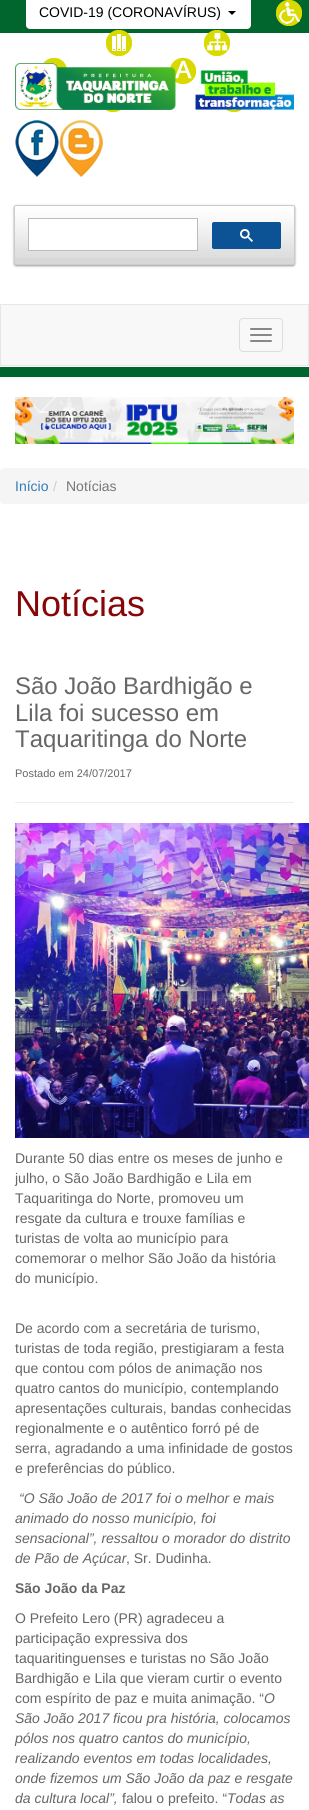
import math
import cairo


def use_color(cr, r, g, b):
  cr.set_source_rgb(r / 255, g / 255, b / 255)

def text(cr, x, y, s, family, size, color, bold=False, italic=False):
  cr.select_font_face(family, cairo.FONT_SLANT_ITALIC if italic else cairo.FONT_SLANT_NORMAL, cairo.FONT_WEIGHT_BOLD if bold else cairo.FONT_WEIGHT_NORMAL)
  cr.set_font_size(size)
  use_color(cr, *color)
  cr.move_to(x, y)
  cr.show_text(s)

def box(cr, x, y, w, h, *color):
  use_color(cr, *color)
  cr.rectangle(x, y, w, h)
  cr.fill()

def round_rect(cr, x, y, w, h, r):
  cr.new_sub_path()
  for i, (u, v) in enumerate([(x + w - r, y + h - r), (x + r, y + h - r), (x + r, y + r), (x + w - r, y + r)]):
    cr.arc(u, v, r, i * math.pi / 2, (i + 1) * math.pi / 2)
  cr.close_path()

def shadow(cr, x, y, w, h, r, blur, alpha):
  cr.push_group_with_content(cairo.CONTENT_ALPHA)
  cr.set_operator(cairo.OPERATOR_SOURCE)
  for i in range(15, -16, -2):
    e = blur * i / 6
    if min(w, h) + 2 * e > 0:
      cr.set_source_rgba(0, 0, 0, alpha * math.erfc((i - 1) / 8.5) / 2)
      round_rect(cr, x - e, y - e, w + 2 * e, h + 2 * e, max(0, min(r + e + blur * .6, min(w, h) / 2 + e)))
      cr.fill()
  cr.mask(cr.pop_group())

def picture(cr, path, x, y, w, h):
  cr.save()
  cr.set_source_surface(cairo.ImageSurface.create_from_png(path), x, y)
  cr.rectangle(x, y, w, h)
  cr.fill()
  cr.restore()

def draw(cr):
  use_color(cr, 255, 255, 255)
  cr.paint()
  box(cr, 0, 0, 309, 33, 0, 102, 45)
  use_color(cr, 255, 255, 255)
  round_rect(cr, 26, -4, 225, 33, 4)
  cr.fill()
  use_color(cr, 0, 0, 0)
  cr.new_path()
  cr.move_to(228, 11)
  cr.line_to(236, 11)
  cr.line_to(232, 15)
  cr.close_path()
  cr.fill()
  picture(cr, "img_01.png", 276, 0, 26, 26)
  picture(cr, "img_02.png", 106, 30, 26, 26)
  picture(cr, "img_03.png", 204, 30, 26, 26)
  picture(cr, "img_04.png", 43, 58, 24, 11)
  picture(cr, "img_05.png", 170, 58, 26, 26)
  picture(cr, "img_06.png", 103, 108, 20, 4)
  picture(cr, "img_07.png", 225, 108, 18, 4)
  picture(cr, "img_08.png", 15, 63, 279, 47)
  picture(cr, "img_09.png", 15, 120, 44, 57)
  picture(cr, "img_10.png", 59, 120, 44, 57)
  use_color(cr, 153, 153, 153)
  shadow(cr, 14, 206, 281, 60, 2, 1, 1)
  use_color(cr, 216, 216, 216)
  round_rect(cr, 14, 205, 281, 60, 2)
  cr.fill()
  picture(cr, "img_11.png", 14, 206, 281, 52)
  round_rect(cr, 14.5, 205.5, 280, 59, 1.5)
  use_color(cr, 204, 204, 204)
  cr.set_line_width(1)
  cr.stroke()
  use_color(cr, 255, 255, 255)
  cr.rectangle(28.5, 218.5, 169, 32)
  cr.fill_preserve()
  use_color(cr, 182, 190, 197)
  cr.stroke()
  use_color(cr, 11, 83, 148)
  round_rect(cr, 212.5, 222.5, 68, 26, 1.5)
  cr.fill_preserve()
  cr.stroke()
  picture(cr, "img_12.png", 240, 229, 13, 13)
  use_color(cr, 248, 248, 248)
  cr.rectangle(0.5, 304.5, 308, 61)
  cr.fill_preserve()
  use_color(cr, 231, 231, 231)
  cr.stroke()
  round_rect(cr, 239.5, 318.5, 43, 33, 3.5)
  use_color(cr, 221, 221, 221)
  cr.stroke()
  use_color(cr, 136, 136, 136)
  round_rect(cr, 250, 328, 22, 2, 1)
  cr.fill()
  round_rect(cr, 250, 334, 22, 2, 1)
  cr.fill()
  round_rect(cr, 250, 340, 22, 2, 1)
  cr.fill()
  box(cr, 0, 367, 309, 10, 0, 102, 45)
  picture(cr, "img_13.png", 15, 397, 279, 47)
  use_color(cr, 245, 245, 245)
  round_rect(cr, 0, 468, 309, 36, 4)
  cr.fill()
  box(cr, 15, 802, 279, 1, 238, 238, 238)
  picture(cr, "img_14.png", 15, 823, 294, 315)
  text(cr, 39, 17, "COVID-19 (CORONAVÍRUS)", "Liberation Sans", 14, (0, 0, 0))
  text(cr, 15, 491, "Início", "Liberation Sans", 14, (51, 122, 183))
  text(cr, 53, 491, "/", "Liberation Sans", 14, (204, 204, 204))
  text(cr, 66, 491, "Notícias", "Liberation Sans", 14, (119, 119, 119))
  text(cr, 15, 616, "Notícias", "Liberation Sans", 36, (135, 6, 8))
  text(cr, 15, 694, "São João Bardhigão e", "Liberation Sans", 24, (102, 102, 102))
  text(cr, 15, 721, "Lila foi sucesso em", "Liberation Sans", 24, (102, 102, 102))
  text(cr, 15, 747, "Taquaritinga do Norte", "Liberation Sans", 24, (102, 102, 102))
  text(cr, 15, 777, "Postado em 24/07/2017", "Liberation Sans", 11, (102, 102, 102))
  text(cr, 15, 1163, "Durante 50 dias entre os meses de junho e", "Liberation Sans", 14, (102, 102, 102))
  text(cr, 15, 1183, "julho, o São João Bardhigão e Lila em", "Liberation Sans", 14, (102, 102, 102))
  text(cr, 15, 1203, "Taquaritinga do Norte, promoveu um", "Liberation Sans", 14, (102, 102, 102))
  text(cr, 15, 1223, "resgate da cultura e trouxe famílias e", "Liberation Sans", 14, (102, 102, 102))
  text(cr, 15, 1243, "turistas de volta ao município para", "Liberation Sans", 14, (102, 102, 102))
  text(cr, 15, 1263, "comemorar o melhor São João da história", "Liberation Sans", 14, (102, 102, 102))
  text(cr, 15, 1283, "do município.", "Liberation Sans", 14, (102, 102, 102))
  text(cr, 15, 1333, "De acordo com a secretária de turismo,", "Liberation Sans", 14, (102, 102, 102))
  text(cr, 15, 1353, "turistas de toda região, prestigiaram a festa", "Liberation Sans", 14, (102, 102, 102))
  text(cr, 15, 1373, "que contou com pólos de animação nos", "Liberation Sans", 14, (102, 102, 102))
  text(cr, 15, 1393, "quatro cantos do município, contemplando", "Liberation Sans", 14, (102, 102, 102))
  text(cr, 15, 1413, "apresentações culturais, bandas conhecidas", "Liberation Sans", 14, (102, 102, 102))
  text(cr, 15, 1433, "regionalmente e o autêntico forró pé de", "Liberation Sans", 14, (102, 102, 102))
  text(cr, 15, 1453, "serra, agradando a uma infinidade de gostos", "Liberation Sans", 14, (102, 102, 102))
  text(cr, 15, 1473, "e preferências do público.", "Liberation Sans", 14, (102, 102, 102))
  text(cr, 19, 1503, "“O São João de 2017 foi o melhor e mais", "Liberation Sans", 14, (102, 102, 102), italic=True)
  text(cr, 15, 1523, "animado do nosso município, foi", "Liberation Sans", 14, (102, 102, 102), italic=True)
  text(cr, 15, 1543, "sensacional”, ressaltou o morador do distrito", "Liberation Sans", 14, (102, 102, 102), italic=True)
  text(cr, 15, 1563, "de Pão de Açúcar", "Liberation Sans", 14, (102, 102, 102), italic=True)
  text(cr, 126, 1563, ", Sr. Dudinha.", "Liberation Sans", 14, (102, 102, 102))
  text(cr, 15, 1593, "São João da Paz", "Liberation Sans", 14, (102, 102, 102), bold=True)
  text(cr, 15, 1623, "O Prefeito Lero (PR) agradeceu a", "Liberation Sans", 14, (102, 102, 102))
  text(cr, 15, 1643, "participação expressiva dos", "Liberation Sans", 14, (102, 102, 102))
  text(cr, 15, 1663, "taquaritinguenses e turistas no São João", "Liberation Sans", 14, (102, 102, 102))
  text(cr, 15, 1683, "Bardhigão e Lila que vieram curtir o evento", "Liberation Sans", 14, (102, 102, 102))
  text(cr, 15, 1703, "com espírito de paz e muita animação. “", "Liberation Sans", 14, (102, 102, 102))
  text(cr, 264, 1703, "O", "Liberation Sans", 14, (102, 102, 102), italic=True)
  text(cr, 15, 1723, "São João 2017 ficou pra história, colocamos", "Liberation Sans", 14, (102, 102, 102), italic=True)
  text(cr, 15, 1743, "pólos nos quatro cantos do município,", "Liberation Sans", 14, (102, 102, 102), italic=True)
  text(cr, 15, 1763, "realizando eventos em todas localidades,", "Liberation Sans", 14, (102, 102, 102), italic=True)
  text(cr, 15, 1783, "onde fizemos um São João da paz e resgate", "Liberation Sans", 14, (102, 102, 102), italic=True)
  text(cr, 15, 1803, "da cultura local”,", "Liberation Sans", 14, (102, 102, 102), italic=True)
  text(cr, 122, 1803, "falou o prefeito. “", "Liberation Sans", 14, (102, 102, 102))
  text(cr, 227, 1803, "Todas as", "Liberation Sans", 14, (102, 102, 102), italic=True)


surface = cairo.ImageSurface(cairo.FORMAT_RGB24, 309, 1810)
cr = cairo.Context(surface)
options = cairo.FontOptions()
options.set_hint_metrics(cairo.HINT_METRICS_OFF)
options.set_hint_style(cairo.HINT_STYLE_NONE)
cr.set_font_options(options)
cr.set_miter_limit(4)
draw(cr)
surface.write_to_png("out.png")
